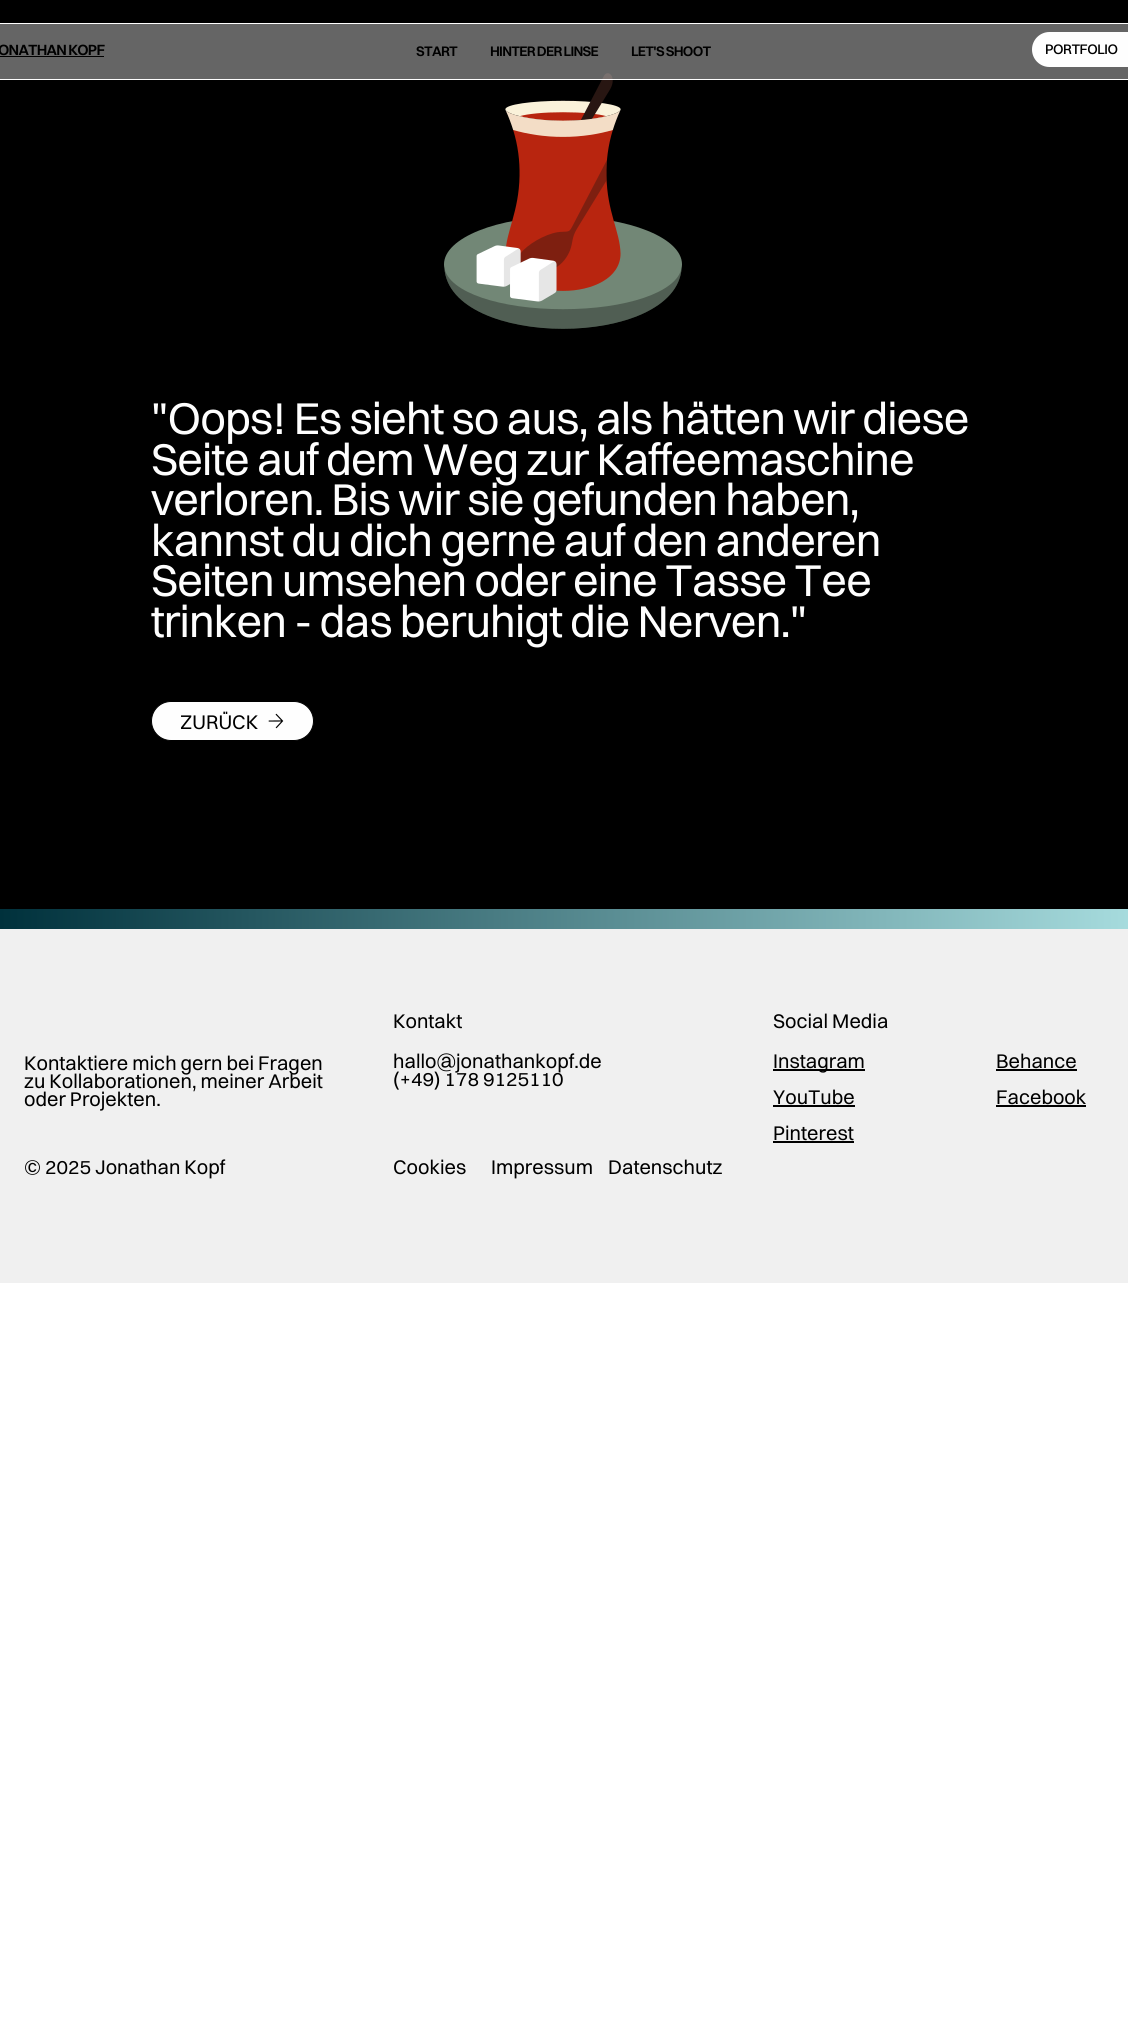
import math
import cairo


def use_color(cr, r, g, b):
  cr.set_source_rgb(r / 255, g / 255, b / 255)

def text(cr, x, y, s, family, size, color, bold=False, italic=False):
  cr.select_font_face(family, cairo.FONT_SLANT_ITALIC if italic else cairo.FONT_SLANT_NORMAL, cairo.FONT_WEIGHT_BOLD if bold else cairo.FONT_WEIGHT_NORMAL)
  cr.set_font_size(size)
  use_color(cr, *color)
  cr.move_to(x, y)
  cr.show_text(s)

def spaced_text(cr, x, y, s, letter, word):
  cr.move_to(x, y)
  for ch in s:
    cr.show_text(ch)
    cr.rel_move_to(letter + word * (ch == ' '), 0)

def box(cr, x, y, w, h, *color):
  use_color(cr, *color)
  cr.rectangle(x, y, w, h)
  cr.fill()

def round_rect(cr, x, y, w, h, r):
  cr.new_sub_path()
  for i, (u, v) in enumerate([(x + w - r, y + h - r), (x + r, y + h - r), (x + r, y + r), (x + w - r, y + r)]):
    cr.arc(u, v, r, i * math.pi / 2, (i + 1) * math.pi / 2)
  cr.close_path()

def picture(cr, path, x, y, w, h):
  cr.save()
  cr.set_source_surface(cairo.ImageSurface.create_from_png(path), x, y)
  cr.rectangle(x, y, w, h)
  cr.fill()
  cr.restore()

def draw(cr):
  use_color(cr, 255, 255, 255)
  cr.paint()
  box(cr, 0, 0, 1128, 909, 0, 0, 0)
  picture(cr, "img_01.png", 444, 73, 238, 256)
  cr.set_source_rgba(0.792, 0.792, 0.792, 0.5)
  cr.rectangle(-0.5, 23.5, 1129, 56)
  cr.fill_preserve()
  use_color(cr, 254, 254, 254)
  cr.set_line_width(1)
  cr.stroke()
  box(cr, 0, 56, 104, 1, 0, 0, 0)
  use_color(cr, 254, 254, 254)
  round_rect(cr, 1032, 32, 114, 35, 17.5)
  cr.fill()
  round_rect(cr, 151.5, 701.5, 162, 39, 19.5)
  cr.fill_preserve()
  use_color(cr, 0, 0, 0)
  cr.stroke()
  picture(cr, "img_02.png", 268, 713, 16, 16)
  box(cr, 0, 929, 1128, 354, 240, 240, 240)
  gradient = cairo.LinearGradient(0, 919, 1128, 919)
  gradient.add_color_stop_rgba(0, 0, 0.192, 0.235, 1)
  gradient.add_color_stop_rgba(1, 0.651, 0.859, 0.867, 1)
  cr.set_source(gradient)
  cr.rectangle(0, 909, 1128, 20)
  cr.fill()
  box(cr, 773, 1069, 92, 2, 0, 0, 0)
  box(cr, 773, 1105, 82, 2, 0, 0, 0)
  box(cr, 773, 1141, 81, 2, 0, 0, 0)
  box(cr, 996, 1069, 81, 2, 0, 0, 0)
  box(cr, 996, 1105, 90, 2, 0, 0, 0)
  cr.select_font_face("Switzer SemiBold")
  cr.set_font_size(15)
  spaced_text(cr, -2, 55, "ONATHAN KOPF", -0.75, 0)
  cr.set_font_size(14)
  spaced_text(cr, 416, 56, "START", -0.75, 0)
  spaced_text(cr, 490, 56, "HINTER DER LINSE", -0.75, 0)
  spaced_text(cr, 631, 56, "LET'S SHOOT", -0.75, 0)
  cr.select_font_face("Switzer Medium")
  spaced_text(cr, 1045, 54, "PORTFOLIO", -0.5, 0)
  cr.select_font_face("Switzer")
  cr.set_font_size(45)
  use_color(cr, 254, 254, 254)
  spaced_text(cr, 151, 434, "\"Oops! Es sieht so aus, als hätten wir diese", -0.9, 0)
  spaced_text(cr, 151, 475, "Seite auf dem Weg zur Kaffeemaschine", -0.9, 0)
  spaced_text(cr, 151, 515, "verloren. Bis wir sie gefunden haben,", -0.9, 0)
  spaced_text(cr, 151, 556, "kannst du dich gerne auf den anderen", -0.9, 0)
  spaced_text(cr, 151, 596, "Seiten umsehen oder eine Tasse Tee", -0.9, 0)
  spaced_text(cr, 151, 637, "trinken - das beruhigt die Nerven.\"", -0.9, 0)
  text(cr, 180, 729, "ZURÜCK", "Switzer", 20, (0, 0, 0))
  text(cr, 24, 1070, "Kontaktiere mich gern bei Fragen", "Switzer", 20, (0, 0, 0))
  text(cr, 24, 1088, "zu Kollaborationen, meiner Arbeit", "Switzer", 20, (0, 0, 0))
  text(cr, 24, 1106, "oder Projekten.", "Switzer", 20, (0, 0, 0))
  text(cr, 24, 1174, "© 2025 Jonathan Kopf", "Switzer", 20, (0, 0, 0))
  text(cr, 393, 1028, "Kontakt", "Switzer", 20, (0, 0, 0))
  text(cr, 393, 1068, "hallo@jonathankopf.de", "Switzer", 20, (0, 0, 0))
  text(cr, 393, 1086, "(+49) 178 9125110", "Switzer", 20, (0, 0, 0))
  text(cr, 393, 1174, "Cookies", "Switzer", 20, (0, 0, 0))
  text(cr, 491, 1174, "Impressum", "Switzer", 20, (0, 0, 0))
  text(cr, 608, 1174, "Datenschutz", "Switzer", 20, (0, 0, 0))
  text(cr, 773, 1028, "Social Media", "Switzer", 20, (0, 0, 0))
  text(cr, 773, 1068, "Instagram", "Switzer", 20, (0, 0, 0))
  text(cr, 773, 1104, "YouTube", "Switzer", 20, (0, 0, 0))
  text(cr, 773, 1140, "Pinterest", "Switzer", 20, (0, 0, 0))
  text(cr, 996, 1068, "Behance", "Switzer", 20, (0, 0, 0))
  text(cr, 996, 1104, "Facebook", "Switzer", 20, (0, 0, 0))


surface = cairo.ImageSurface(cairo.FORMAT_RGB24, 1128, 2044)
cr = cairo.Context(surface)
options = cairo.FontOptions()
options.set_hint_metrics(cairo.HINT_METRICS_OFF)
options.set_hint_style(cairo.HINT_STYLE_NONE)
cr.set_font_options(options)
cr.set_miter_limit(4)
draw(cr)
surface.write_to_png("out.png")
